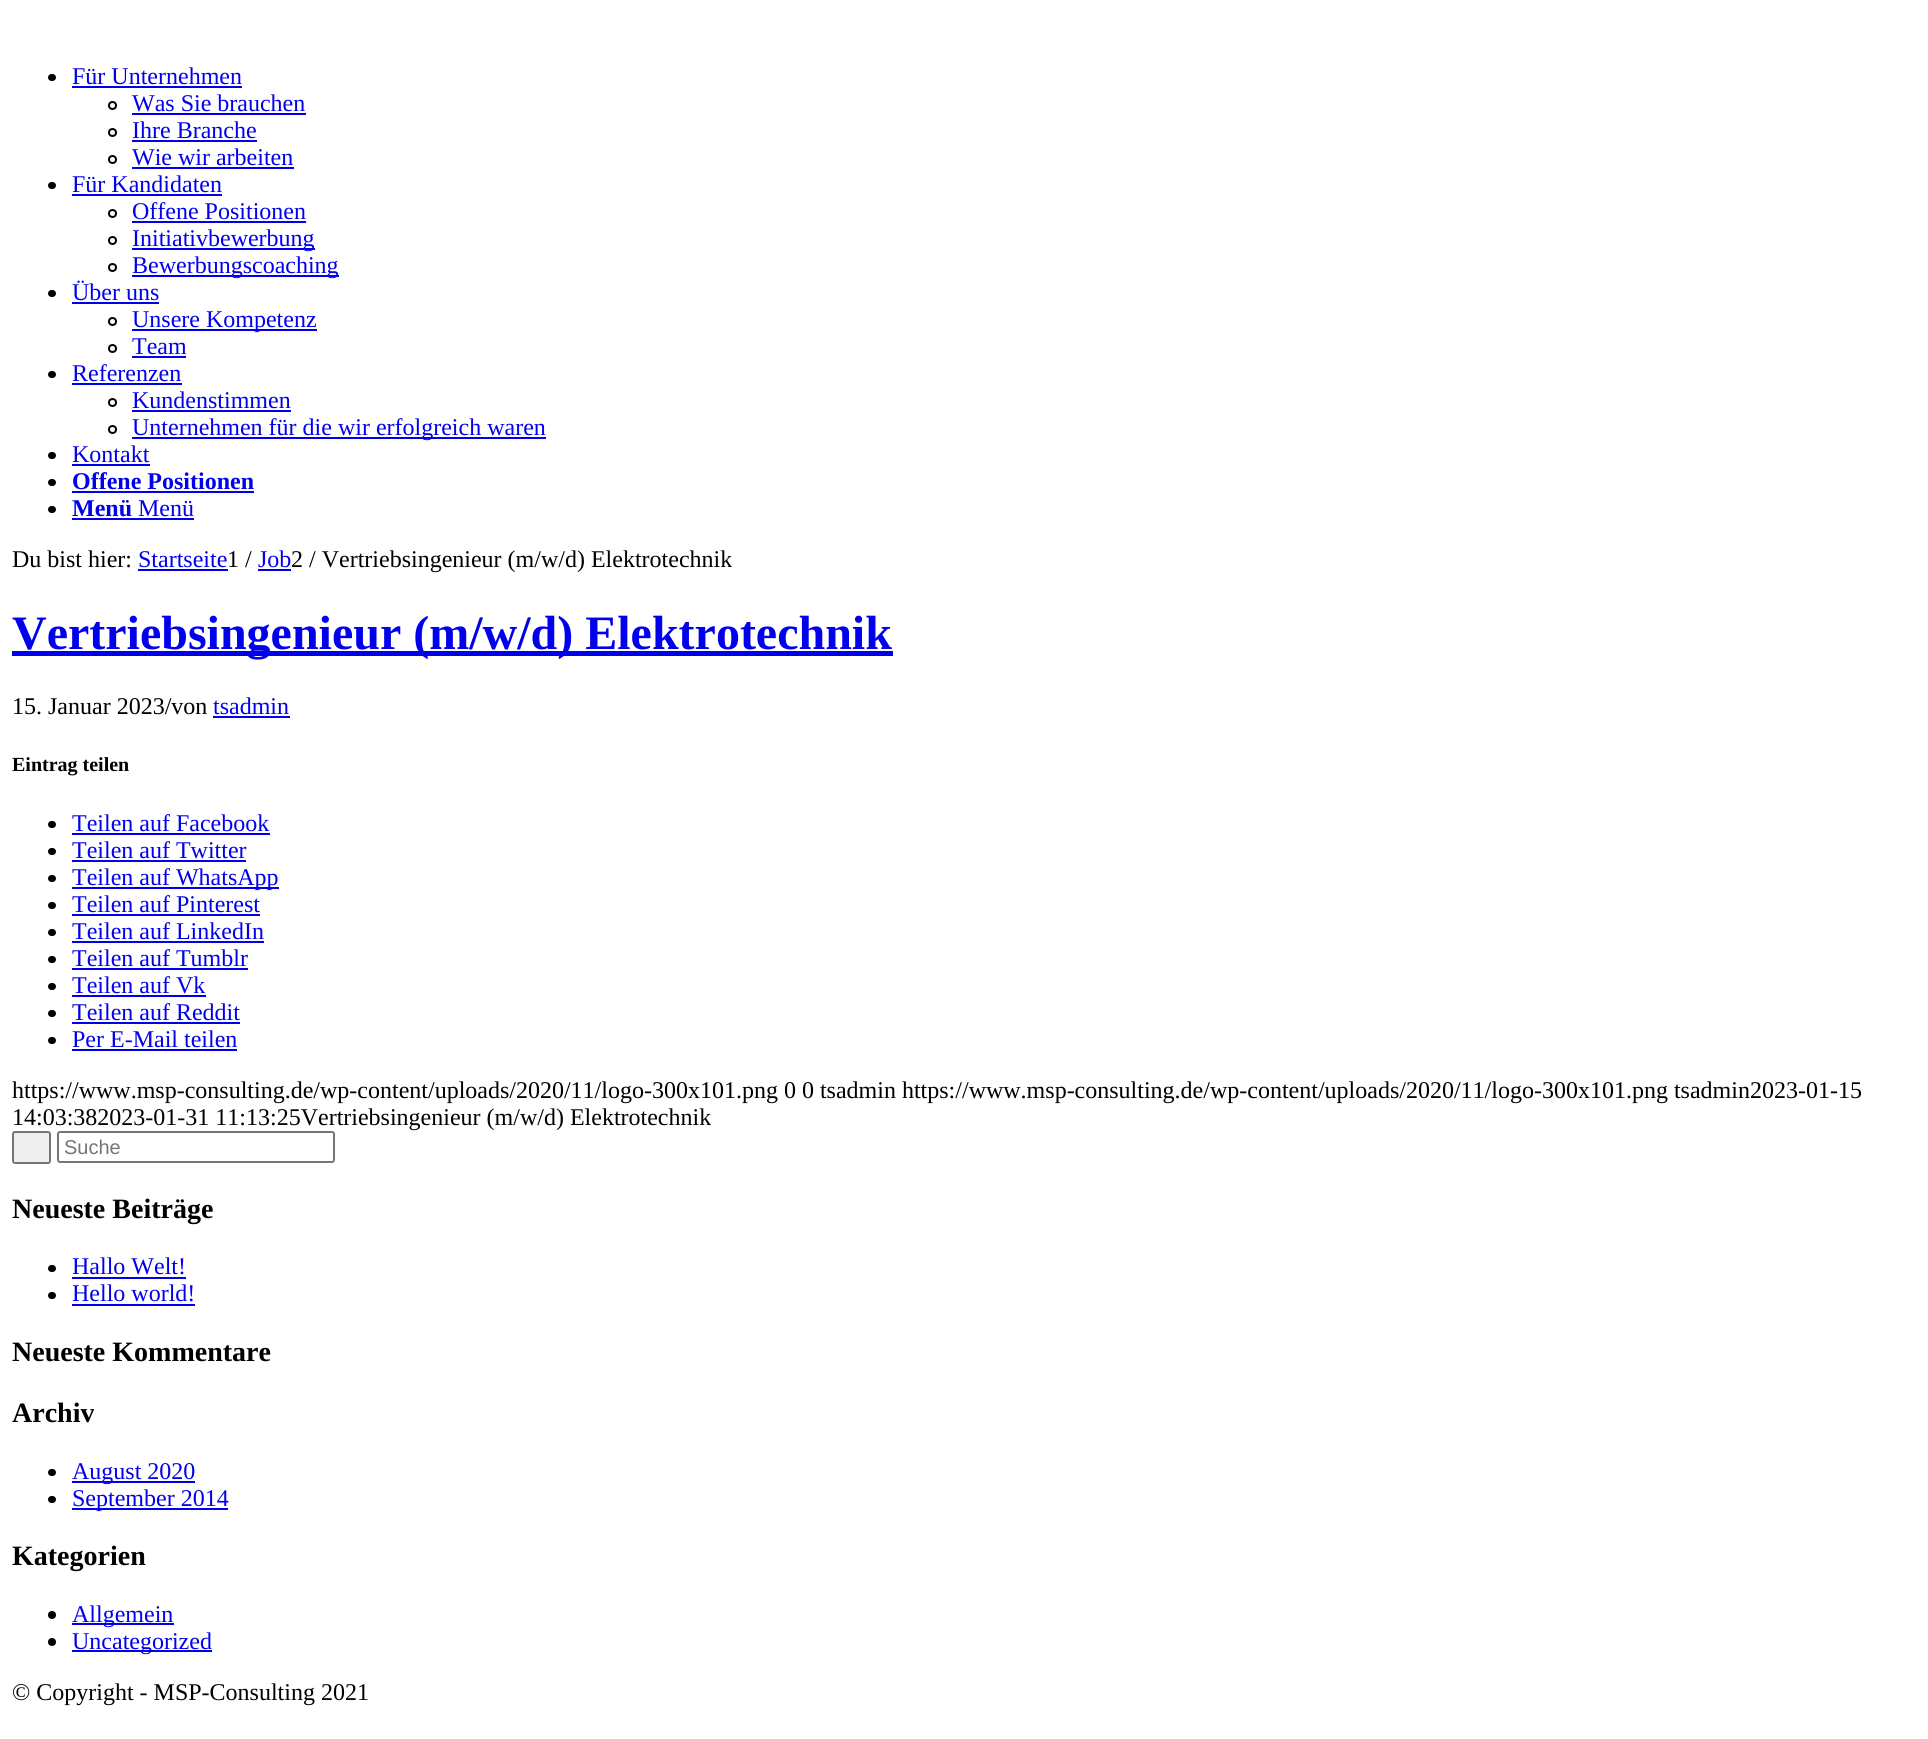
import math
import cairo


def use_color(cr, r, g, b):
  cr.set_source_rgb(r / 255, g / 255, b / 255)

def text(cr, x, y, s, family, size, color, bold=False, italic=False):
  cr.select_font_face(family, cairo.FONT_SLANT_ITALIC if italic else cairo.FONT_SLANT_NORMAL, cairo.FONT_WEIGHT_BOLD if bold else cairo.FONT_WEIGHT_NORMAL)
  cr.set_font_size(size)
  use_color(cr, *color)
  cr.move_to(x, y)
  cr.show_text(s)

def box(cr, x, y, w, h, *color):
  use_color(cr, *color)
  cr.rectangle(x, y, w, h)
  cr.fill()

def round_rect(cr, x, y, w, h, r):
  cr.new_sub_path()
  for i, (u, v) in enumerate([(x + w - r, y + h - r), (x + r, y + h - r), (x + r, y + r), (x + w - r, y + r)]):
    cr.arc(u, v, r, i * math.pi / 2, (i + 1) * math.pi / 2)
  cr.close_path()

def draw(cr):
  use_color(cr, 255, 255, 255)
  cr.paint()
  use_color(cr, 0, 0, 0)
  round_rect(cr, 48, 74, 8, 7, 3.5)
  cr.fill()
  box(cr, 72, 86, 170, 2, 0, 0, 238)
  cr.arc(112.5, 105.5, 3.5, 0, 2 * math.pi)
  use_color(cr, 0, 0, 0)
  cr.stroke()
  box(cr, 132, 113, 174, 2, 0, 0, 238)
  cr.arc(112.5, 132.5, 3.5, 0, 2 * math.pi)
  use_color(cr, 0, 0, 0)
  cr.stroke()
  box(cr, 132, 140, 125, 2, 0, 0, 238)
  cr.arc(112.5, 159.5, 3.5, 0, 2 * math.pi)
  use_color(cr, 0, 0, 0)
  cr.stroke()
  box(cr, 132, 167, 162, 2, 0, 0, 238)
  use_color(cr, 0, 0, 0)
  round_rect(cr, 48, 182, 8, 7, 3.5)
  cr.fill()
  box(cr, 72, 194, 150, 2, 0, 0, 238)
  cr.arc(112.5, 213.5, 3.5, 0, 2 * math.pi)
  use_color(cr, 0, 0, 0)
  cr.stroke()
  box(cr, 132, 221, 174, 2, 0, 0, 238)
  cr.arc(112.5, 240.5, 3.5, 0, 2 * math.pi)
  use_color(cr, 0, 0, 0)
  cr.stroke()
  box(cr, 132, 248, 183, 2, 0, 0, 238)
  cr.arc(112.5, 267.5, 3.5, 0, 2 * math.pi)
  use_color(cr, 0, 0, 0)
  cr.stroke()
  box(cr, 132, 275, 207, 2, 0, 0, 238)
  use_color(cr, 0, 0, 0)
  round_rect(cr, 48, 290, 8, 7, 3.5)
  cr.fill()
  box(cr, 72, 302, 87, 2, 0, 0, 238)
  cr.arc(112.5, 321.5, 3.5, 0, 2 * math.pi)
  use_color(cr, 0, 0, 0)
  cr.stroke()
  box(cr, 132, 329, 185, 2, 0, 0, 238)
  cr.arc(112.5, 348.5, 3.5, 0, 2 * math.pi)
  use_color(cr, 0, 0, 0)
  cr.stroke()
  box(cr, 132, 356, 54, 2, 0, 0, 238)
  use_color(cr, 0, 0, 0)
  round_rect(cr, 48, 371, 8, 7, 3.5)
  cr.fill()
  box(cr, 72, 383, 110, 2, 0, 0, 238)
  cr.arc(112.5, 402.5, 3.5, 0, 2 * math.pi)
  use_color(cr, 0, 0, 0)
  cr.stroke()
  box(cr, 132, 410, 159, 2, 0, 0, 238)
  cr.arc(112.5, 429.5, 3.5, 0, 2 * math.pi)
  use_color(cr, 0, 0, 0)
  cr.stroke()
  box(cr, 132, 437, 414, 2, 0, 0, 238)
  use_color(cr, 0, 0, 0)
  round_rect(cr, 48, 452, 8, 7, 3.5)
  cr.fill()
  box(cr, 72, 464, 78, 2, 0, 0, 238)
  use_color(cr, 0, 0, 0)
  round_rect(cr, 48, 479, 8, 7, 3.5)
  cr.fill()
  box(cr, 72, 491, 182, 2, 0, 0, 238)
  use_color(cr, 0, 0, 0)
  round_rect(cr, 48, 506, 8, 7, 3.5)
  cr.fill()
  box(cr, 72, 518, 122, 2, 0, 0, 238)
  box(cr, 138, 569, 90, 2, 0, 0, 238)
  box(cr, 258, 569, 33, 2, 0, 0, 238)
  box(cr, 12, 651, 881, 5, 0, 0, 238)
  box(cr, 213, 716, 77, 2, 0, 0, 238)
  use_color(cr, 0, 0, 0)
  round_rect(cr, 48, 821, 8, 7, 3.5)
  cr.fill()
  box(cr, 72, 833, 198, 2, 0, 0, 238)
  use_color(cr, 0, 0, 0)
  round_rect(cr, 48, 848, 8, 7, 3.5)
  cr.fill()
  box(cr, 72, 860, 174, 2, 0, 0, 238)
  use_color(cr, 0, 0, 0)
  round_rect(cr, 48, 875, 8, 7, 3.5)
  cr.fill()
  box(cr, 72, 887, 207, 2, 0, 0, 238)
  use_color(cr, 0, 0, 0)
  round_rect(cr, 48, 902, 8, 7, 3.5)
  cr.fill()
  box(cr, 72, 914, 188, 2, 0, 0, 238)
  use_color(cr, 0, 0, 0)
  round_rect(cr, 48, 929, 8, 7, 3.5)
  cr.fill()
  box(cr, 72, 941, 192, 2, 0, 0, 238)
  use_color(cr, 0, 0, 0)
  round_rect(cr, 48, 956, 8, 7, 3.5)
  cr.fill()
  box(cr, 72, 968, 176, 2, 0, 0, 238)
  use_color(cr, 0, 0, 0)
  round_rect(cr, 48, 983, 8, 7, 3.5)
  cr.fill()
  box(cr, 72, 995, 134, 2, 0, 0, 238)
  use_color(cr, 0, 0, 0)
  round_rect(cr, 48, 1010, 8, 7, 3.5)
  cr.fill()
  box(cr, 72, 1022, 168, 2, 0, 0, 238)
  use_color(cr, 0, 0, 0)
  round_rect(cr, 48, 1037, 8, 7, 3.5)
  cr.fill()
  box(cr, 72, 1049, 165, 2, 0, 0, 238)
  use_color(cr, 239, 239, 239)
  round_rect(cr, 13, 1132, 37, 31, 2)
  cr.fill_preserve()
  use_color(cr, 118, 118, 118)
  cr.stroke()
  round_rect(cr, 58, 1132, 276, 30, 2)
  cr.stroke()
  use_color(cr, 0, 0, 0)
  round_rect(cr, 48, 1265, 8, 7, 3.5)
  cr.fill()
  box(cr, 72, 1277, 114, 2, 0, 0, 238)
  use_color(cr, 0, 0, 0)
  round_rect(cr, 48, 1292, 8, 7, 3.5)
  cr.fill()
  box(cr, 72, 1304, 123, 2, 0, 0, 238)
  use_color(cr, 0, 0, 0)
  round_rect(cr, 48, 1469, 8, 7, 3.5)
  cr.fill()
  box(cr, 72, 1481, 123, 2, 0, 0, 238)
  use_color(cr, 0, 0, 0)
  round_rect(cr, 48, 1496, 8, 7, 3.5)
  cr.fill()
  box(cr, 72, 1508, 156, 2, 0, 0, 238)
  use_color(cr, 0, 0, 0)
  cr.arc(52, 1615, 4, 0, 2 * math.pi)
  cr.fill()
  box(cr, 72, 1623, 102, 2, 0, 0, 238)
  use_color(cr, 0, 0, 0)
  cr.arc(52, 1642, 4, 0, 2 * math.pi)
  cr.fill()
  box(cr, 72, 1650, 140, 2, 0, 0, 238)
  text(cr, 72, 84, "Für Unternehmen", "Liberation Serif", 24, (0, 0, 238))
  text(cr, 132, 111, "Was Sie brauchen", "Liberation Serif", 24, (0, 0, 238))
  text(cr, 132, 138, "Ihre Branche", "Liberation Serif", 24, (0, 0, 238))
  text(cr, 132, 165, "Wie wir arbeiten", "Liberation Serif", 24, (0, 0, 238))
  text(cr, 72, 192, "Für Kandidaten", "Liberation Serif", 24, (0, 0, 238))
  text(cr, 132, 219, "Offene Positionen", "Liberation Serif", 24, (0, 0, 238))
  text(cr, 132, 246, "Initiativbewerbung", "Liberation Serif", 24, (0, 0, 238))
  text(cr, 132, 273, "Bewerbungscoaching", "Liberation Serif", 24, (0, 0, 238))
  text(cr, 72, 300, "Über uns", "Liberation Serif", 24, (0, 0, 238))
  text(cr, 132, 327, "Unsere Kompetenz", "Liberation Serif", 24, (0, 0, 238))
  text(cr, 132, 354, "Team", "Liberation Serif", 24, (0, 0, 238))
  text(cr, 72, 381, "Referenzen", "Liberation Serif", 24, (0, 0, 238))
  text(cr, 132, 408, "Kundenstimmen", "Liberation Serif", 24, (0, 0, 238))
  text(cr, 132, 435, "Unternehmen für die wir erfolgreich waren", "Liberation Serif", 24, (0, 0, 238))
  text(cr, 72, 462, "Kontakt", "Liberation Serif", 24, (0, 0, 238))
  text(cr, 72, 489, "Offene Positionen", "Liberation Serif", 24, (0, 0, 238), bold=True)
  text(cr, 72, 516, "Menü", "Liberation Serif", 24, (0, 0, 238), bold=True)
  text(cr, 138, 516, "Menü", "Liberation Serif", 24, (0, 0, 238))
  text(cr, 12, 567, "Du bist hier:", "Liberation Serif", 24, (0, 0, 0))
  text(cr, 138, 567, "Startseite", "Liberation Serif", 24, (0, 0, 238))
  text(cr, 227, 567, "1 /", "Liberation Serif", 24, (0, 0, 0))
  text(cr, 258, 567, "Job", "Liberation Serif", 24, (0, 0, 238))
  text(cr, 291, 567, "2 / Vertriebsingenieur (m/w/d) Elektrotechnik", "Liberation Serif", 24, (0, 0, 0))
  text(cr, 12, 649, "Vertriebsingenieur (m/w/d) Elektrotechnik", "Liberation Serif", 48, (0, 0, 238), bold=True)
  text(cr, 12, 714, "15. Januar 2023/von", "Liberation Serif", 24, (0, 0, 0))
  text(cr, 213, 714, "tsadmin", "Liberation Serif", 24, (0, 0, 238))
  text(cr, 12, 771, "Eintrag teilen", "Liberation Serif", 20, (0, 0, 0), bold=True)
  text(cr, 72, 831, "Teilen auf Facebook", "Liberation Serif", 24, (0, 0, 238))
  text(cr, 72, 858, "Teilen auf Twitter", "Liberation Serif", 24, (0, 0, 238))
  text(cr, 72, 885, "Teilen auf WhatsApp", "Liberation Serif", 24, (0, 0, 238))
  text(cr, 72, 912, "Teilen auf Pinterest", "Liberation Serif", 24, (0, 0, 238))
  text(cr, 72, 939, "Teilen auf LinkedIn", "Liberation Serif", 24, (0, 0, 238))
  text(cr, 72, 966, "Teilen auf Tumblr", "Liberation Serif", 24, (0, 0, 238))
  text(cr, 72, 993, "Teilen auf Vk", "Liberation Serif", 24, (0, 0, 238))
  text(cr, 72, 1020, "Teilen auf Reddit", "Liberation Serif", 24, (0, 0, 238))
  text(cr, 72, 1047, "Per E-Mail teilen", "Liberation Serif", 24, (0, 0, 238))
  text(cr, 12, 1098, "https://www.msp-consulting.de/wp-content/uploads/2020/11/logo-300x101.png 0 0 tsadmin https://www.msp-consulting.de/wp-content/uploads/2020/11/logo-300x101.png tsadmin2023-01-15", "Liberation Serif", 24, (0, 0, 0))
  text(cr, 12, 1125, "14:03:382023-01-31 11:13:25Vertriebsingenieur (m/w/d) Elektrotechnik", "Liberation Serif", 24, (0, 0, 0))
  text(cr, 64, 1154, "Suche", "Liberation Sans", 20, (117, 117, 117))
  text(cr, 12, 1218, "Neueste Beiträge", "Liberation Serif", 28, (0, 0, 0), bold=True)
  text(cr, 72, 1274, "Hallo Welt!", "Liberation Serif", 24, (0, 0, 238))
  text(cr, 72, 1301, "Hello world!", "Liberation Serif", 24, (0, 0, 238))
  text(cr, 12, 1361, "Neueste Kommentare", "Liberation Serif", 28, (0, 0, 0), bold=True)
  text(cr, 12, 1422, "Archiv", "Liberation Serif", 28, (0, 0, 0), bold=True)
  text(cr, 72, 1479, "August 2020", "Liberation Serif", 24, (0, 0, 238))
  text(cr, 72, 1506, "September 2014", "Liberation Serif", 24, (0, 0, 238))
  text(cr, 12, 1565, "Kategorien", "Liberation Serif", 28, (0, 0, 0), bold=True)
  text(cr, 72, 1622, "Allgemein", "Liberation Serif", 24, (0, 0, 238))
  text(cr, 72, 1649, "Uncategorized", "Liberation Serif", 24, (0, 0, 238))
  text(cr, 12, 1700, "© Copyright - MSP-Consulting 2021", "Liberation Serif", 24, (0, 0, 0))


surface = cairo.ImageSurface(cairo.FORMAT_RGB24, 1928, 1739)
cr = cairo.Context(surface)
options = cairo.FontOptions()
options.set_hint_metrics(cairo.HINT_METRICS_OFF)
options.set_hint_style(cairo.HINT_STYLE_NONE)
cr.set_font_options(options)
cr.set_miter_limit(4)
draw(cr)
surface.write_to_png("out.png")
